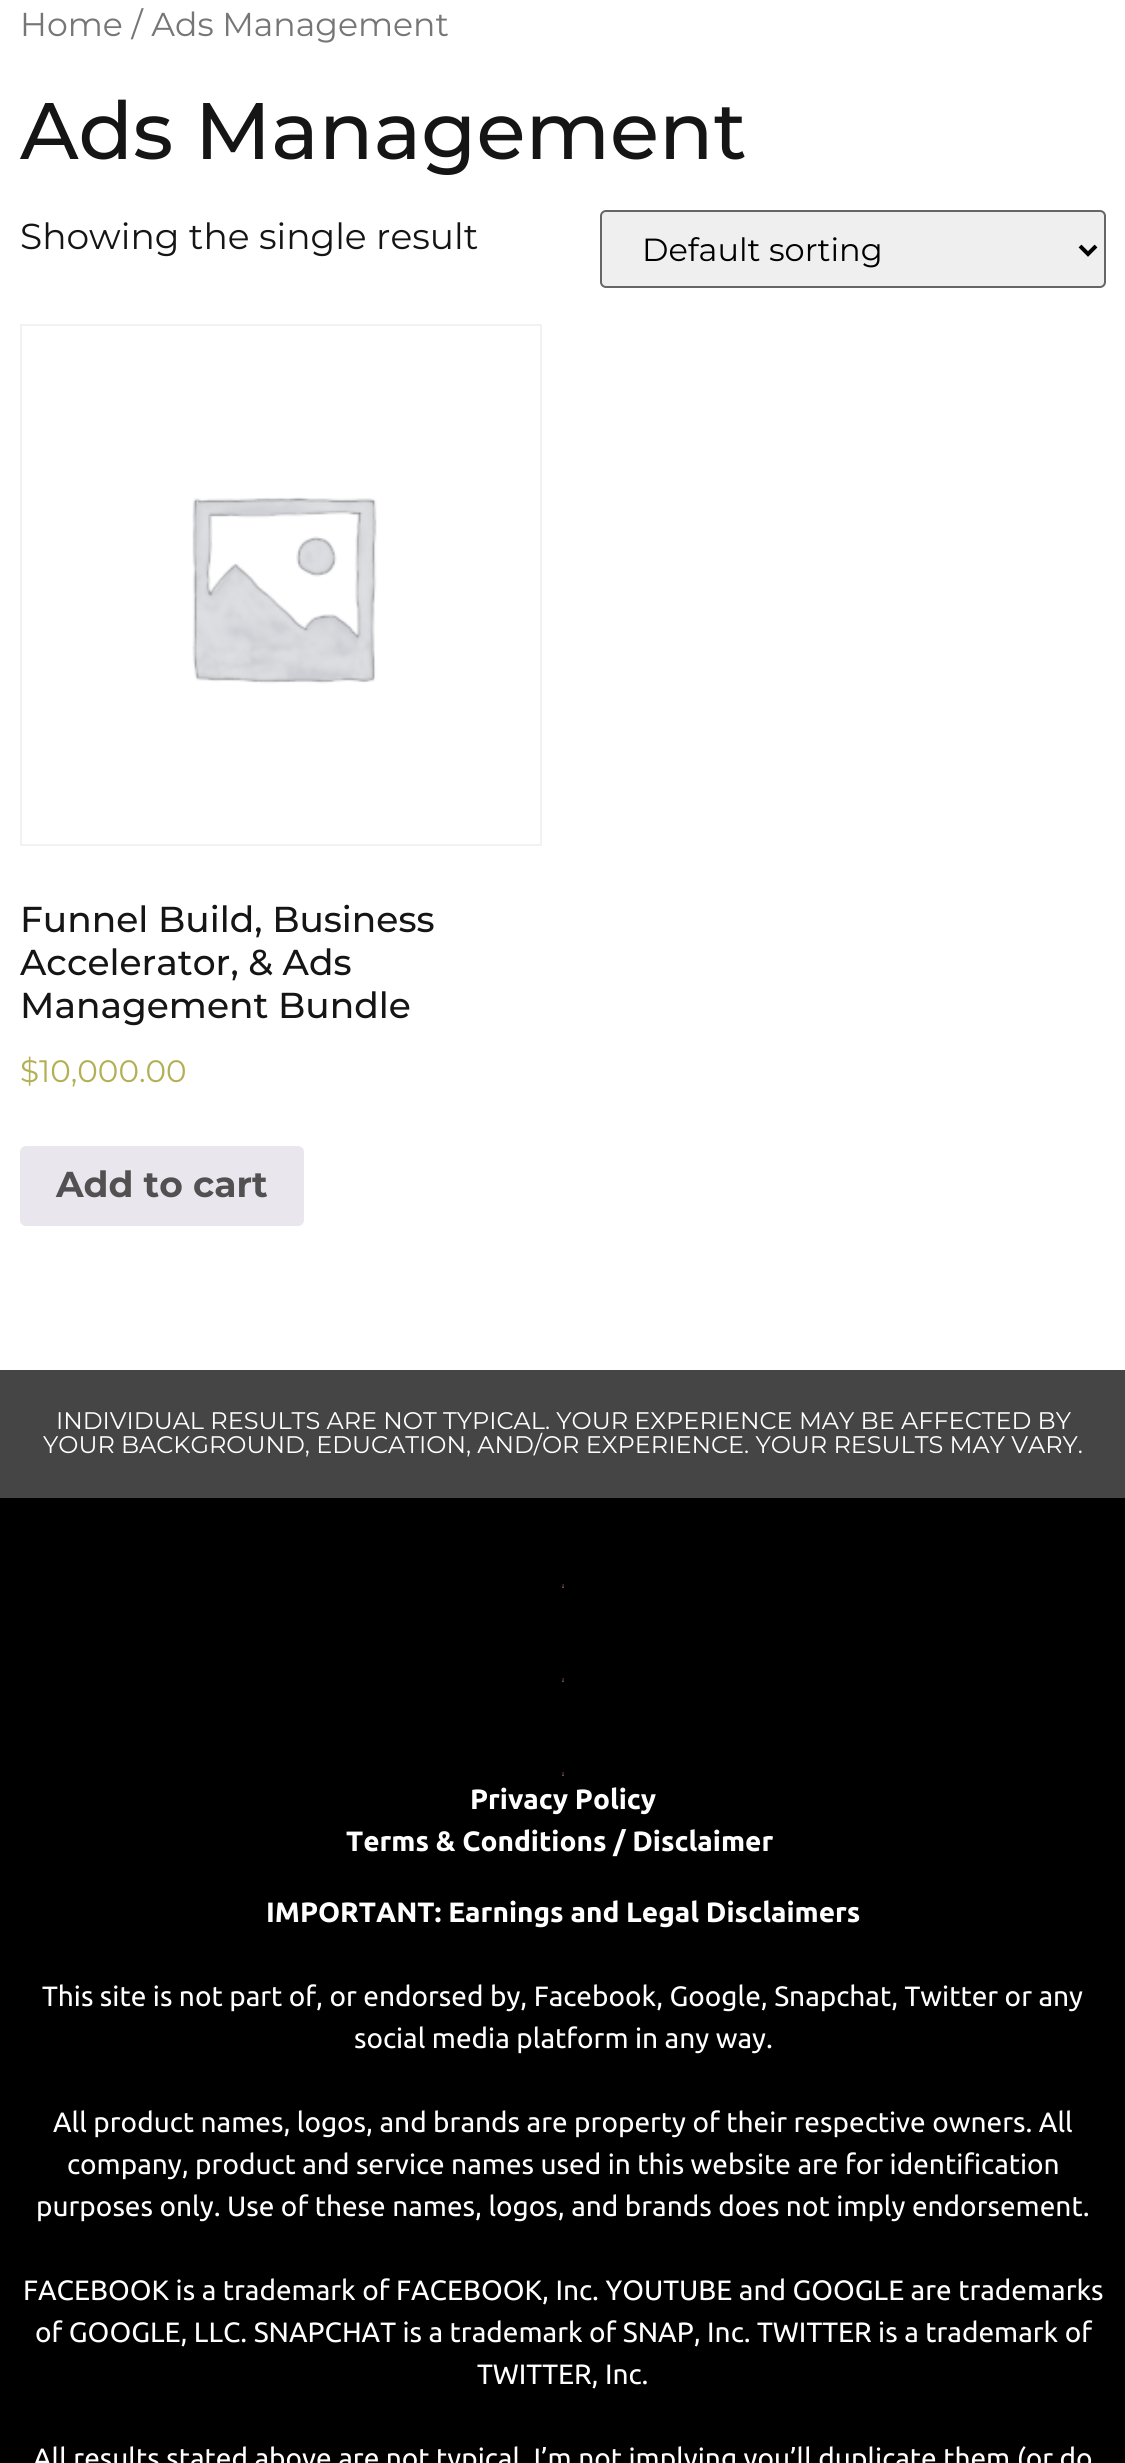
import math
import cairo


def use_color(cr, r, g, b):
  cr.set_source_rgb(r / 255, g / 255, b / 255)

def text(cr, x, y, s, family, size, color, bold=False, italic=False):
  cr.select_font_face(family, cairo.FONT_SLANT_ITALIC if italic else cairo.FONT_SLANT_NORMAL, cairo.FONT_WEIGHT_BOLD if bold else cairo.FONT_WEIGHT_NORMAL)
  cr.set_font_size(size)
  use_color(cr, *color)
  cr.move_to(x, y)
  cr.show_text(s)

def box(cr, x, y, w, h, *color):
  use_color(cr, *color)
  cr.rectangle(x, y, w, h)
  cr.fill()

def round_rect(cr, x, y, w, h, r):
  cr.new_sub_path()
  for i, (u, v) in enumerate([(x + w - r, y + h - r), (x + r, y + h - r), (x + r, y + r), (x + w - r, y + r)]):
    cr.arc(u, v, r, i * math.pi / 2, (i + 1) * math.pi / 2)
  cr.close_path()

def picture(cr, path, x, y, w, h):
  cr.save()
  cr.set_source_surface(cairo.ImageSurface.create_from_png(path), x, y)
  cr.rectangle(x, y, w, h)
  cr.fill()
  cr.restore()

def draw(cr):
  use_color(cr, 255, 255, 255)
  cr.paint()
  use_color(cr, 239, 239, 239)
  round_rect(cr, 601, 211, 504, 76, 5)
  cr.fill_preserve()
  use_color(cr, 102, 102, 102)
  cr.stroke()
  cr.new_path()
  cr.move_to(1080, 246)
  cr.line_to(1088, 254)
  cr.line_to(1096, 246)
  use_color(cr, 0, 0, 0)
  cr.set_line_width(4)
  cr.stroke()
  cr.rectangle(21, 325, 520, 520)
  use_color(cr, 242, 242, 242)
  cr.set_line_width(2)
  cr.stroke()
  picture(cr, "img_01.png", 192, 497, 185, 187)
  use_color(cr, 233, 230, 237)
  round_rect(cr, 20, 1146, 284, 80, 6)
  cr.fill()
  box(cr, 0, 1370, 1125, 128, 69, 69, 69)
  box(cr, 0, 1498, 1125, 965, 0, 0, 0)
  picture(cr, "img_02.png", 562, 1584, 2, 4)
  picture(cr, "img_02.png", 562, 1678, 2, 4)
  picture(cr, "img_02.png", 562, 1772, 2, 4)
  text(cr, 20, 36, "Home / Ads Management", "Montserrat", 33.1, (118, 118, 118))
  text(cr, 20, 159, "Ads Management", "Montserrat Medium", 80, (21, 21, 21))
  text(cr, 20, 249, "Showing the single result", "Montserrat", 36, (21, 21, 21))
  text(cr, 642, 261, "Default sorting", "Montserrat", 32, (0, 0, 0))
  text(cr, 20, 932, "Funnel Build, Business", "Montserrat Medium", 36, (21, 21, 21))
  text(cr, 20, 975, "Accelerator, & Ads", "Montserrat Medium", 36, (21, 21, 21))
  text(cr, 20, 1018, "Management Bundle", "Montserrat Medium", 36, (21, 21, 21))
  text(cr, 20, 1082, "$10,000.00", "Montserrat", 31, (179, 175, 84))
  text(cr, 56, 1197, "Add to cart", "Montserrat", 36, (81, 81, 81), bold=True)
  text(cr, 56, 1429, "INDIVIDUAL RESULTS ARE NOT TYPICAL. YOUR EXPERIENCE MAY BE AFFECTED BY", "Montserrat", 24, (255, 255, 255))
  text(cr, 43, 1453, "YOUR BACKGROUND, EDUCATION, AND/OR EXPERIENCE. YOUR RESULTS MAY VARY.", "Montserrat", 24, (255, 255, 255))
  text(cr, 470, 1809, "Privacy Policy", "Ubuntu", 28, (255, 255, 255), bold=True)
  text(cr, 346, 1851, "Terms & Conditions / Disclaimer", "Ubuntu", 28, (255, 255, 255), bold=True)
  text(cr, 266, 1922, "IMPORTANT: Earnings and Legal Disclaimers", "Ubuntu", 28, (255, 255, 255), bold=True)
  text(cr, 42, 2006, "This site is not part of, or endorsed by, Facebook, Google, Snapchat, Twitter or any", "Ubuntu", 28, (255, 255, 255))
  text(cr, 354, 2048, "social media platform in any way.", "Ubuntu", 28, (255, 255, 255))
  text(cr, 53, 2132, "All product names, logos, and brands are property of their respective owners. All", "Ubuntu", 28, (255, 255, 255))
  text(cr, 67, 2174, "company, product and service names used in this website are for identification", "Ubuntu", 28, (255, 255, 255))
  text(cr, 36, 2216, "purposes only. Use of these names, logos, and brands does not imply endorsement.", "Ubuntu", 28, (255, 255, 255))
  text(cr, 23, 2300, "FACEBOOK is a trademark of FACEBOOK, Inc. YOUTUBE and GOOGLE are trademarks", "Ubuntu", 28, (255, 255, 255))
  text(cr, 35, 2342, "of GOOGLE, LLC. SNAPCHAT is a trademark of SNAP, Inc. TWITTER is a trademark of", "Ubuntu", 28, (255, 255, 255))
  text(cr, 477, 2384, "TWITTER, Inc.", "Ubuntu", 28, (255, 255, 255))
  text(cr, 33, 2468, "All results stated above are not typical, I’m not implying you’ll duplicate them (or do", "Ubuntu", 28, (255, 255, 255))


surface = cairo.ImageSurface(cairo.FORMAT_RGB24, 1125, 2463)
cr = cairo.Context(surface)
options = cairo.FontOptions()
options.set_hint_metrics(cairo.HINT_METRICS_OFF)
options.set_hint_style(cairo.HINT_STYLE_NONE)
cr.set_font_options(options)
cr.set_miter_limit(4)
draw(cr)
surface.write_to_png("out.png")
